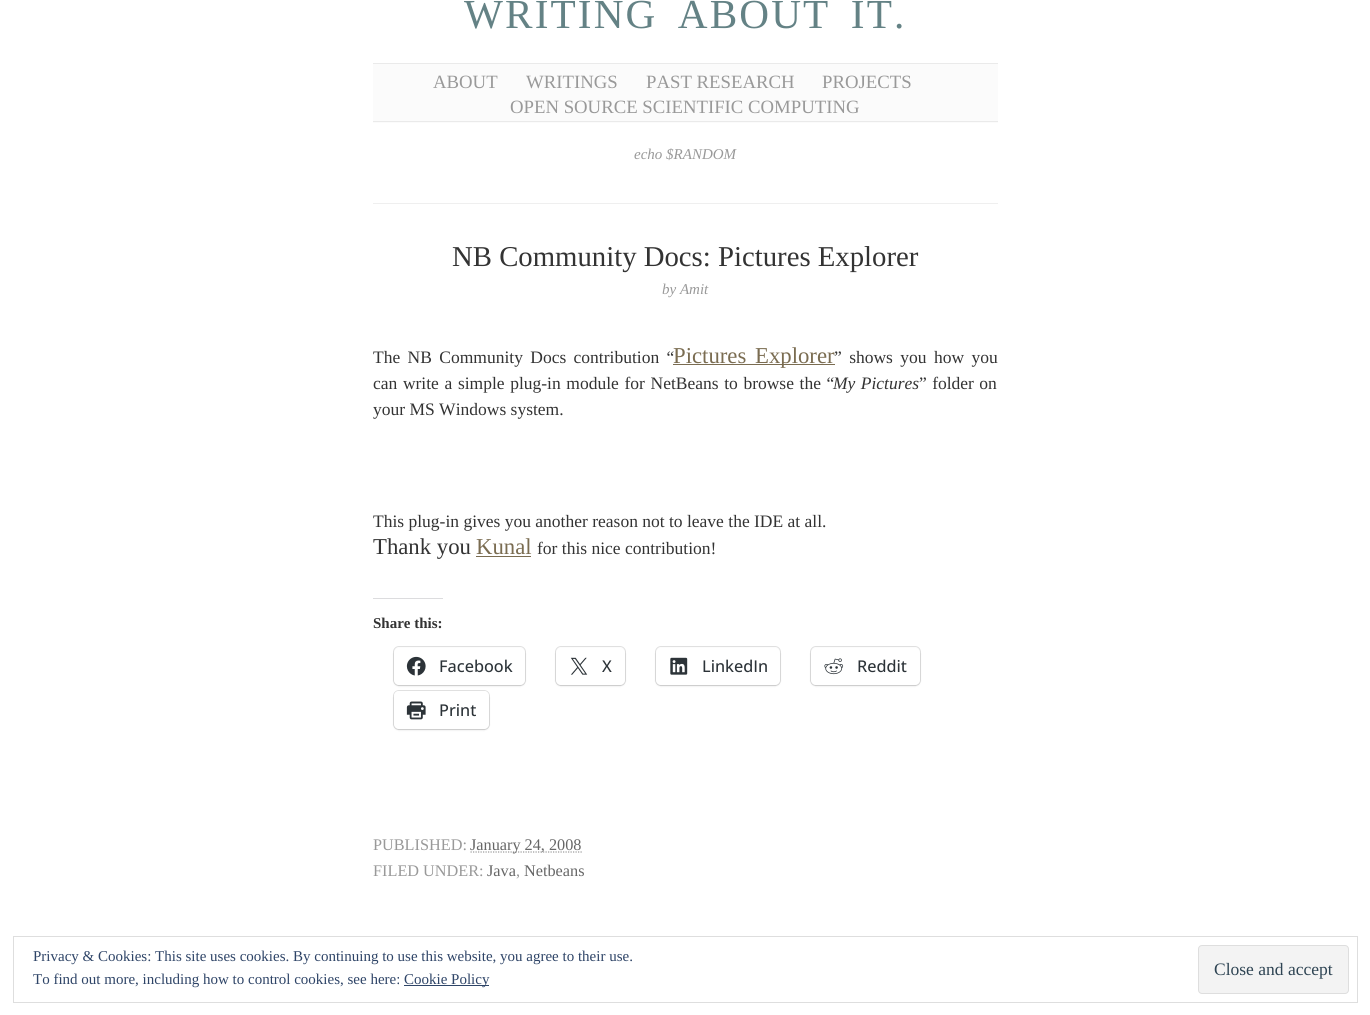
import math
import cairo


def use_color(cr, r, g, b):
  cr.set_source_rgb(r / 255, g / 255, b / 255)

def text(cr, x, y, s, family, size, color, bold=False, italic=False):
  cr.select_font_face(family, cairo.FONT_SLANT_ITALIC if italic else cairo.FONT_SLANT_NORMAL, cairo.FONT_WEIGHT_BOLD if bold else cairo.FONT_WEIGHT_NORMAL)
  cr.set_font_size(size)
  use_color(cr, *color)
  cr.move_to(x, y)
  cr.show_text(s)

def spaced_text(cr, x, y, s, letter, word):
  cr.move_to(x, y)
  for ch in s:
    cr.show_text(ch)
    cr.rel_move_to(letter + word * (ch == ' '), 0)

def box(cr, x, y, w, h, *color):
  use_color(cr, *color)
  cr.rectangle(x, y, w, h)
  cr.fill()

def round_rect(cr, x, y, w, h, r):
  cr.new_sub_path()
  for i, (u, v) in enumerate([(x + w - r, y + h - r), (x + r, y + h - r), (x + r, y + r), (x + w - r, y + r)]):
    cr.arc(u, v, r, i * math.pi / 2, (i + 1) * math.pi / 2)
  cr.close_path()

def shadow(cr, x, y, w, h, r, blur, alpha):
  cr.push_group_with_content(cairo.CONTENT_ALPHA)
  cr.set_operator(cairo.OPERATOR_SOURCE)
  for i in range(15, -16, -2):
    e = blur * i / 6
    if min(w, h) + 2 * e > 0:
      cr.set_source_rgba(0, 0, 0, alpha * math.erfc((i - 1) / 8.5) / 2)
      round_rect(cr, x - e, y - e, w + 2 * e, h + 2 * e, max(0, min(r + e + blur * .6, min(w, h) / 2 + e)))
      cr.fill()
  cr.mask(cr.pop_group())

def picture(cr, path, x, y, w, h):
  cr.save()
  cr.set_source_surface(cairo.ImageSurface.create_from_png(path), x, y)
  cr.rectangle(x, y, w, h)
  cr.fill()
  cr.restore()

def draw(cr):
  use_color(cr, 255, 255, 255)
  cr.paint()
  box(cr, 373, 64, 625, 59, 251, 251, 251)
  box(cr, 373, 63, 625, 1, 234, 234, 234)
  box(cr, 373, 121, 625, 1, 234, 234, 234)
  box(cr, 373, 203, 625, 1, 239, 239, 239)
  box(cr, 673, 364, 162, 1, 122, 108, 81)
  box(cr, 476, 556, 55, 1, 122, 108, 81)
  box(cr, 373, 598, 70, 1, 220, 220, 222)
  round_rect(cr, 393.5, 646.5, 132, 39, 5.5)
  use_color(cr, 224, 224, 224)
  cr.set_line_width(1)
  cr.stroke()
  use_color(cr, 0, 0, 0)
  shadow(cr, 394, 649, 131, 37, 5, 1, 0.12)
  use_color(cr, 255, 255, 255)
  round_rect(cr, 394, 648, 131, 37, 5)
  cr.fill()
  picture(cr, "img_01.png", 406, 656, 20, 20)
  round_rect(cr, 555.5, 646.5, 70, 39, 5.5)
  use_color(cr, 224, 224, 224)
  cr.stroke()
  use_color(cr, 0, 0, 0)
  shadow(cr, 556, 649, 69, 37, 5, 1, 0.12)
  use_color(cr, 255, 255, 255)
  round_rect(cr, 556, 648, 69, 37, 5)
  cr.fill()
  picture(cr, "img_02.png", 570, 657, 18, 18)
  round_rect(cr, 655.5, 646.5, 125, 39, 5.5)
  use_color(cr, 224, 224, 224)
  cr.stroke()
  use_color(cr, 0, 0, 0)
  shadow(cr, 656, 649, 124, 37, 5, 1, 0.12)
  use_color(cr, 255, 255, 255)
  round_rect(cr, 656, 648, 124, 37, 5)
  cr.fill()
  picture(cr, "img_03.png", 670, 657, 18, 18)
  round_rect(cr, 810.5, 646.5, 110, 39, 5.5)
  use_color(cr, 224, 224, 224)
  cr.stroke()
  use_color(cr, 0, 0, 0)
  shadow(cr, 811, 649, 109, 37, 5, 1, 0.12)
  use_color(cr, 255, 255, 255)
  round_rect(cr, 811, 648, 109, 37, 5)
  cr.fill()
  picture(cr, "img_04.png", 824, 658, 20, 17)
  round_rect(cr, 393.5, 690.5, 96, 39, 5.5)
  use_color(cr, 224, 224, 224)
  cr.stroke()
  use_color(cr, 0, 0, 0)
  shadow(cr, 394, 693, 95, 37, 5, 1, 0.12)
  use_color(cr, 255, 255, 255)
  round_rect(cr, 394, 691, 95, 38, 5)
  cr.fill()
  picture(cr, "img_05.png", 406, 701, 20, 19)
  cr.new_path()
  cr.move_to(470.5, 852)
  cr.line_to(582, 852)
  use_color(cr, 153, 153, 153)
  cr.set_line_width(1.2)
  cr.set_dash([1.25, 1.25])
  cr.stroke()
  cr.rectangle(13.5, 936.5, 1344, 66)
  use_color(cr, 222, 222, 222)
  cr.set_line_width(1)
  cr.set_dash([])
  cr.stroke()
  use_color(cr, 243, 243, 243)
  round_rect(cr, 1198.5, 945.5, 150, 48, 3.5)
  cr.fill_preserve()
  use_color(cr, 222, 222, 222)
  cr.stroke()
  box(cr, 404, 985, 85, 1, 46, 68, 103)
  cr.select_font_face("Liberation Serif")
  cr.set_font_size(41.25)
  use_color(cr, 100, 130, 133)
  spaced_text(cr, 464, 28, "WRITING ABOUT IT.", 2.1, 8)
  text(cr, 433, 88, "ABOUT", "Liberation Serif", 18.75, (153, 153, 153))
  text(cr, 526, 88, "WRITINGS", "Liberation Serif", 18.75, (153, 153, 153))
  text(cr, 646, 88, "PAST RESEARCH", "Liberation Serif", 18.75, (153, 153, 153))
  text(cr, 822, 88, "PROJECTS", "Liberation Serif", 18.75, (153, 153, 153))
  text(cr, 510, 113, "OPEN SOURCE SCIENTIFIC COMPUTING", "Liberation Serif", 18.75, (153, 153, 153))
  text(cr, 634, 159, "echo $RANDOM", "Liberation Serif", 15, (153, 153, 153), italic=True)
  text(cr, 452, 266, "NB Community Docs: Pictures Explorer", "Liberation Serif", 28.75, (51, 51, 51))
  text(cr, 662, 294, "by Amit", "Liberation Serif", 15, (153, 153, 153), italic=True)
  cr.select_font_face("Liberation Serif")
  cr.set_font_size(17.5)
  use_color(cr, 51, 51, 51)
  spaced_text(cr, 373, 363, "The NB Community Docs contribution “", 0, 3)
  cr.set_font_size(22.75)
  use_color(cr, 122, 108, 81)
  spaced_text(cr, 673, 363, "Pictures Explorer", 0, 3)
  cr.set_font_size(17.5)
  use_color(cr, 51, 51, 51)
  spaced_text(cr, 834, 363, "” shows you how you", 0, 3)
  spaced_text(cr, 373, 389, "can write a simple plug-in module for NetBeans to browse the “", 0, 1.25)
  cr.select_font_face("Liberation Serif", cairo.FONT_SLANT_ITALIC)
  spaced_text(cr, 833, 389, "My Pictures", 0, 1)
  cr.select_font_face("Liberation Serif")
  spaced_text(cr, 919, 389, "” folder on", 0, 1)
  text(cr, 373, 415, "your MS Windows system.", "Liberation Serif", 17.5, (51, 51, 51))
  text(cr, 373, 527, "This plug-in gives you another reason not to leave the IDE at all.", "Liberation Serif", 17.5, (51, 51, 51))
  text(cr, 373, 554, "Thank you", "Liberation Serif", 22.75, (51, 51, 51))
  text(cr, 476, 554, "Kunal", "Liberation Serif", 22.75, (122, 108, 81))
  text(cr, 537, 554, "for this nice contribution!", "Liberation Serif", 17.5, (51, 51, 51))
  text(cr, 373, 628, "Share this:", "Liberation Serif", 15, (51, 51, 51), bold=True)
  text(cr, 439, 672, "Facebook", "Open Sans Medium", 16.25, (44, 51, 56))
  text(cr, 602, 672, "X", "Open Sans Medium", 16.25, (44, 51, 56))
  text(cr, 702, 672, "LinkedIn", "Open Sans Medium", 16.25, (44, 51, 56))
  text(cr, 857, 672, "Reddit", "Open Sans Medium", 16.25, (44, 51, 56))
  text(cr, 439, 716, "Print", "Open Sans Medium", 16.25, (44, 51, 56))
  text(cr, 373, 850, "PUBLISHED:", "Liberation Serif", 16.25, (153, 153, 153))
  text(cr, 470, 850, "January 24, 2008", "Liberation Serif", 16.25, (102, 102, 102))
  text(cr, 373, 876, "FILED UNDER:", "Liberation Serif", 16.25, (153, 153, 153))
  text(cr, 487, 876, "Java", "Liberation Serif", 16.25, (102, 102, 102))
  text(cr, 516, 876, ",", "Liberation Serif", 16.25, (153, 153, 153))
  text(cr, 524, 876, "Netbeans", "Liberation Serif", 16.25, (102, 102, 102))
  text(cr, 33, 961, "Privacy & Cookies: This site uses cookies. By continuing to use this website, you agree to their use.", "Liberation Serif", 15, (46, 68, 103))
  text(cr, 1214, 975, "Close and accept", "Liberation Serif", 17.5, (46, 68, 83))
  text(cr, 33, 984, "To find out more, including how to control cookies, see here:", "Liberation Serif", 15, (46, 68, 103))
  text(cr, 404, 984, "Cookie Policy", "Liberation Serif", 15, (46, 68, 103))


surface = cairo.ImageSurface(cairo.FORMAT_RGB24, 1370, 1015)
cr = cairo.Context(surface)
options = cairo.FontOptions()
options.set_hint_metrics(cairo.HINT_METRICS_OFF)
options.set_hint_style(cairo.HINT_STYLE_NONE)
cr.set_font_options(options)
cr.set_miter_limit(4)
draw(cr)
surface.write_to_png("out.png")
